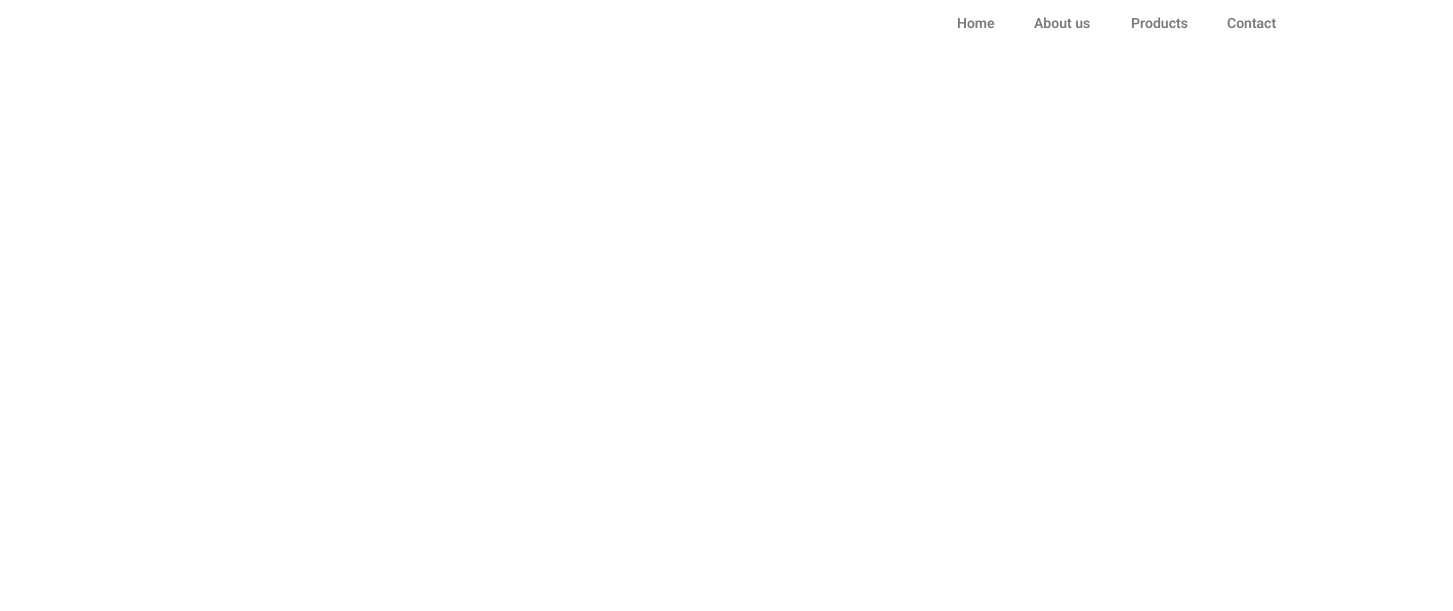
import math
import cairo


def use_color(cr, r, g, b):
  cr.set_source_rgb(r / 255, g / 255, b / 255)

def text(cr, x, y, s, family, size, color, bold=False, italic=False):
  cr.select_font_face(family, cairo.FONT_SLANT_ITALIC if italic else cairo.FONT_SLANT_NORMAL, cairo.FONT_WEIGHT_BOLD if bold else cairo.FONT_WEIGHT_NORMAL)
  cr.set_font_size(size)
  use_color(cr, *color)
  cr.move_to(x, y)
  cr.show_text(s)

def draw(cr):
  use_color(cr, 255, 255, 255)
  cr.paint()
  text(cr, 957, 28, "Home", "Roboto SemiBold", 14, (122, 122, 122))
  text(cr, 1034, 28, "About us", "Roboto SemiBold", 14, (122, 122, 122))
  text(cr, 1131, 28, "Products", "Roboto SemiBold", 14, (122, 122, 122))
  text(cr, 1227, 28, "Contact", "Roboto SemiBold", 14, (122, 122, 122))


surface = cairo.ImageSurface(cairo.FORMAT_RGB24, 1453, 611)
cr = cairo.Context(surface)
options = cairo.FontOptions()
options.set_hint_metrics(cairo.HINT_METRICS_OFF)
options.set_hint_style(cairo.HINT_STYLE_NONE)
cr.set_font_options(options)
cr.set_miter_limit(4)
draw(cr)
surface.write_to_png("out.png")
